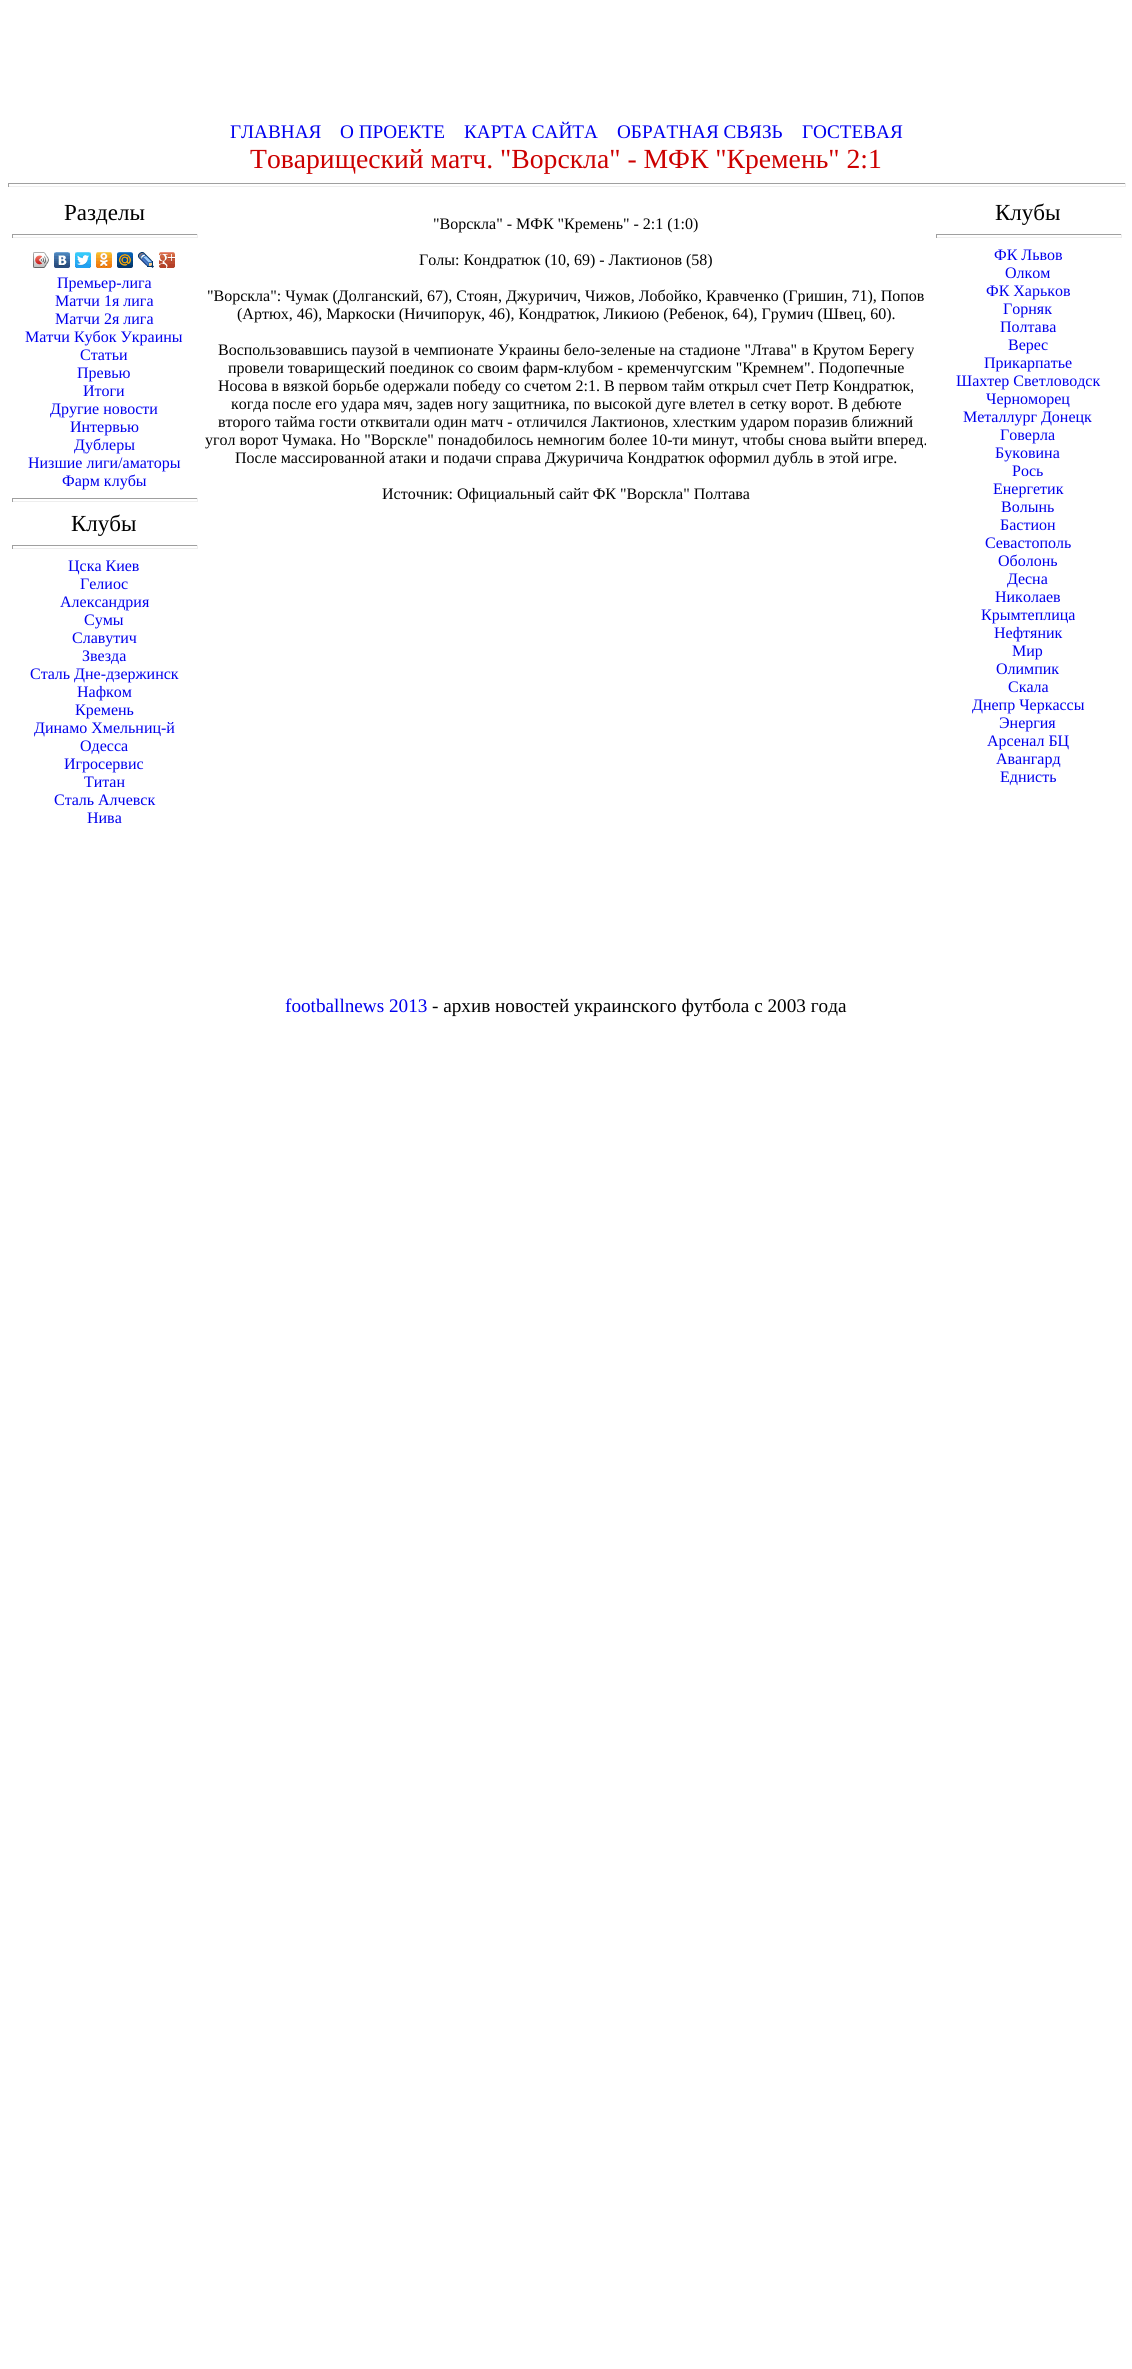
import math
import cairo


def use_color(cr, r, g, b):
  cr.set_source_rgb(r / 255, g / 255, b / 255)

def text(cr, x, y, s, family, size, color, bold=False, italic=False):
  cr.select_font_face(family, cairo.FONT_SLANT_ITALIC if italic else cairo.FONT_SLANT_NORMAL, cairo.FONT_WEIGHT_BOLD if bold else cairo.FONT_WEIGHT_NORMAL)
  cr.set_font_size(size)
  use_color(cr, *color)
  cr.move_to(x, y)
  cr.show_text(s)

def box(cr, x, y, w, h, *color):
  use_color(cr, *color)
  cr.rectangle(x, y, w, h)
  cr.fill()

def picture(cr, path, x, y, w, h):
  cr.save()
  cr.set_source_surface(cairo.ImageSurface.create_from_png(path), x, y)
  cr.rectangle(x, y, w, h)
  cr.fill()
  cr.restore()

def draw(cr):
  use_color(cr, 255, 255, 255)
  cr.paint()
  box(cr, 8, 183, 1118, 1, 159, 159, 159)
  box(cr, 1125, 183, 1, 4, 238, 238, 238)
  box(cr, 8, 186, 1118, 1, 238, 238, 238)
  box(cr, 8, 183, 1, 4, 159, 159, 159)
  box(cr, 12, 234, 186, 1, 159, 159, 159)
  box(cr, 197, 234, 1, 4, 238, 238, 238)
  box(cr, 12, 237, 186, 1, 238, 238, 238)
  box(cr, 12, 234, 1, 4, 159, 159, 159)
  picture(cr, "img_01.png", 33, 252, 16, 16)
  picture(cr, "img_02.png", 33, 252, 16, 16)
  picture(cr, "img_03.png", 54, 252, 16, 16)
  picture(cr, "img_04.png", 75, 252, 16, 16)
  picture(cr, "img_05.png", 96, 252, 16, 16)
  picture(cr, "img_06.png", 117, 252, 16, 16)
  picture(cr, "img_07.png", 138, 252, 16, 16)
  picture(cr, "img_08.png", 159, 252, 16, 16)
  box(cr, 12, 498, 186, 1, 159, 159, 159)
  box(cr, 197, 498, 1, 4, 238, 238, 238)
  box(cr, 12, 501, 186, 1, 238, 238, 238)
  box(cr, 12, 498, 1, 4, 159, 159, 159)
  box(cr, 12, 545, 186, 1, 159, 159, 159)
  box(cr, 197, 545, 1, 4, 238, 238, 238)
  box(cr, 12, 548, 186, 1, 238, 238, 238)
  box(cr, 12, 545, 1, 4, 159, 159, 159)
  box(cr, 936, 234, 186, 1, 159, 159, 159)
  box(cr, 1121, 234, 1, 4, 238, 238, 238)
  box(cr, 936, 237, 186, 1, 238, 238, 238)
  box(cr, 936, 234, 1, 4, 159, 159, 159)
  text(cr, 230, 138, "ГЛАВНАЯ", "Liberation Serif", 19.2, (0, 0, 238))
  text(cr, 340, 138, "О ПРОЕКТЕ", "Liberation Serif", 19.2, (0, 0, 238))
  text(cr, 464, 138, "КАРТА САЙТА", "Liberation Serif", 19.2, (0, 0, 238))
  text(cr, 617, 138, "ОБРАТНАЯ СВЯЗЬ", "Liberation Serif", 19.2, (0, 0, 238))
  text(cr, 802, 138, "ГОСТЕВАЯ", "Liberation Serif", 19.2, (0, 0, 238))
  text(cr, 250, 168, "Товарищеский матч. \"Ворскла\" - МФК \"Кремень\" 2:1", "Liberation Serif", 27.65, (204, 0, 0))
  text(cr, 64, 220, "Разделы", "Liberation Serif", 23, (0, 0, 0))
  text(cr, 57, 288, "Премьер-лига", "Liberation Serif", 16, (0, 0, 238))
  text(cr, 55, 306, "Матчи 1я лига", "Liberation Serif", 16, (0, 0, 238))
  text(cr, 55, 324, "Матчи 2я лига", "Liberation Serif", 16, (0, 0, 238))
  text(cr, 25, 342, "Матчи Кубок Украины", "Liberation Serif", 16, (0, 0, 238))
  text(cr, 80, 360, "Статьи", "Liberation Serif", 16, (0, 0, 238))
  text(cr, 77, 378, "Превью", "Liberation Serif", 16, (0, 0, 238))
  text(cr, 83, 396, "Итоги", "Liberation Serif", 16, (0, 0, 238))
  text(cr, 50, 414, "Другие новости", "Liberation Serif", 16, (0, 0, 238))
  text(cr, 70, 432, "Интервью", "Liberation Serif", 16, (0, 0, 238))
  text(cr, 74, 450, "Дублеры", "Liberation Serif", 16, (0, 0, 238))
  text(cr, 28, 468, "Низшие лиги/аматоры", "Liberation Serif", 16, (0, 0, 238))
  text(cr, 62, 486, "Фарм клубы", "Liberation Serif", 16, (0, 0, 238))
  text(cr, 71, 531, "Клубы", "Liberation Serif", 23, (0, 0, 0))
  text(cr, 68, 571, "Цска Киев", "Liberation Serif", 16, (0, 0, 238))
  text(cr, 80, 589, "Гелиос", "Liberation Serif", 16, (0, 0, 238))
  text(cr, 60, 607, "Александрия", "Liberation Serif", 16, (0, 0, 238))
  text(cr, 84, 625, "Сумы", "Liberation Serif", 16, (0, 0, 238))
  text(cr, 72, 643, "Славутич", "Liberation Serif", 16, (0, 0, 238))
  text(cr, 82, 661, "Звезда", "Liberation Serif", 16, (0, 0, 238))
  text(cr, 30, 679, "Сталь Дне-дзержинск", "Liberation Serif", 16, (0, 0, 238))
  text(cr, 77, 697, "Нафком", "Liberation Serif", 16, (0, 0, 238))
  text(cr, 75, 715, "Кремень", "Liberation Serif", 16, (0, 0, 238))
  text(cr, 34, 733, "Динамо Хмельниц-й", "Liberation Serif", 16, (0, 0, 238))
  text(cr, 80, 751, "Одесса", "Liberation Serif", 16, (0, 0, 238))
  text(cr, 64, 769, "Игросервис", "Liberation Serif", 16, (0, 0, 238))
  text(cr, 84, 787, "Титан", "Liberation Serif", 16, (0, 0, 238))
  text(cr, 54, 805, "Сталь Алчевск", "Liberation Serif", 16, (0, 0, 238))
  text(cr, 87, 823, "Нива", "Liberation Serif", 16, (0, 0, 238))
  text(cr, 433, 229, "\"Ворскла\" - МФК \"Кремень\" - 2:1 (1:0)", "Liberation Serif", 16, (0, 0, 0))
  text(cr, 419, 265, "Голы: Кондратюк (10, 69) - Лактионов (58)", "Liberation Serif", 16, (0, 0, 0))
  text(cr, 207, 301, "\"Ворскла\": Чумак (Долганский, 67), Стоян, Джуричич, Чижов, Лобойко, Кравченко (Гришин, 71), Попов", "Liberation Serif", 16, (0, 0, 0))
  text(cr, 237, 319, "(Артюх, 46), Маркоски (Ничипорук, 46), Кондратюк, Ликиою (Ребенок, 64), Грумич (Швец, 60).", "Liberation Serif", 16, (0, 0, 0))
  text(cr, 218, 355, "Воспользовавшись паузой в чемпионате Украины бело-зеленые на стадионе \"Лтава\" в Крутом Берегу", "Liberation Serif", 16, (0, 0, 0))
  text(cr, 228, 373, "провели товарищеский поединок со своим фарм-клубом - кременчугским \"Кремнем\". Подопечные", "Liberation Serif", 16, (0, 0, 0))
  text(cr, 218, 391, "Носова в вязкой борьбе одержали победу со счетом 2:1. В первом тайм открыл счет Петр Кондратюк,", "Liberation Serif", 16, (0, 0, 0))
  text(cr, 231, 409, "когда после его удара мяч, задев ногу защитника, по высокой дуге влетел в сетку ворот. В дебюте", "Liberation Serif", 16, (0, 0, 0))
  text(cr, 218, 427, "второго тайма гости отквитали один матч - отличился Лактионов, хлестким ударом поразив ближний", "Liberation Serif", 16, (0, 0, 0))
  text(cr, 205, 445, "угол ворот Чумака. Но \"Ворскле\" понадобилось немногим более 10-ти минут, чтобы снова выйти вперед.", "Liberation Serif", 16, (0, 0, 0))
  text(cr, 235, 463, "После массированной атаки и подачи справа Джуричича Кондратюк оформил дубль в этой игре.", "Liberation Serif", 16, (0, 0, 0))
  text(cr, 382, 499, "Источник: Официальный сайт ФК \"Ворскла\" Полтава", "Liberation Serif", 16, (0, 0, 0))
  text(cr, 995, 220, "Клубы", "Liberation Serif", 23, (0, 0, 0))
  text(cr, 994, 260, "ФК Львов", "Liberation Serif", 16, (0, 0, 238))
  text(cr, 1005, 278, "Олком", "Liberation Serif", 16, (0, 0, 238))
  text(cr, 986, 296, "ФК Харьков", "Liberation Serif", 16, (0, 0, 238))
  text(cr, 1003, 314, "Горняк", "Liberation Serif", 16, (0, 0, 238))
  text(cr, 1000, 332, "Полтава", "Liberation Serif", 16, (0, 0, 238))
  text(cr, 1008, 350, "Верес", "Liberation Serif", 16, (0, 0, 238))
  text(cr, 984, 368, "Прикарпатье", "Liberation Serif", 16, (0, 0, 238))
  text(cr, 956, 386, "Шахтер Светловодск", "Liberation Serif", 16, (0, 0, 238))
  text(cr, 986, 404, "Черноморец", "Liberation Serif", 16, (0, 0, 238))
  text(cr, 963, 422, "Металлург Донецк", "Liberation Serif", 16, (0, 0, 238))
  text(cr, 1000, 440, "Говерла", "Liberation Serif", 16, (0, 0, 238))
  text(cr, 995, 458, "Буковина", "Liberation Serif", 16, (0, 0, 238))
  text(cr, 1012, 476, "Рось", "Liberation Serif", 16, (0, 0, 238))
  text(cr, 993, 494, "Енергетик", "Liberation Serif", 16, (0, 0, 238))
  text(cr, 1001, 512, "Волынь", "Liberation Serif", 16, (0, 0, 238))
  text(cr, 1000, 530, "Бастион", "Liberation Serif", 16, (0, 0, 238))
  text(cr, 985, 548, "Севастополь", "Liberation Serif", 16, (0, 0, 238))
  text(cr, 998, 566, "Оболонь", "Liberation Serif", 16, (0, 0, 238))
  text(cr, 1007, 584, "Десна", "Liberation Serif", 16, (0, 0, 238))
  text(cr, 995, 602, "Николаев", "Liberation Serif", 16, (0, 0, 238))
  text(cr, 981, 620, "Крымтеплица", "Liberation Serif", 16, (0, 0, 238))
  text(cr, 994, 638, "Нефтяник", "Liberation Serif", 16, (0, 0, 238))
  text(cr, 1012, 656, "Мир", "Liberation Serif", 16, (0, 0, 238))
  text(cr, 996, 674, "Олимпик", "Liberation Serif", 16, (0, 0, 238))
  text(cr, 1008, 692, "Скала", "Liberation Serif", 16, (0, 0, 238))
  text(cr, 972, 710, "Днепр Черкассы", "Liberation Serif", 16, (0, 0, 238))
  text(cr, 999, 728, "Энергия", "Liberation Serif", 16, (0, 0, 238))
  text(cr, 987, 746, "Арсенал БЦ", "Liberation Serif", 16, (0, 0, 238))
  text(cr, 996, 764, "Авангард", "Liberation Serif", 16, (0, 0, 238))
  text(cr, 1000, 782, "Еднисть", "Liberation Serif", 16, (0, 0, 238))
  text(cr, 285, 1012, "footballnews 2013", "Liberation Serif", 19.2, (0, 0, 238))
  text(cr, 432, 1012, "- архив новостей украинского футбола с 2003 года", "Liberation Serif", 19.2, (0, 0, 0))


surface = cairo.ImageSurface(cairo.FORMAT_RGB24, 1132, 2369)
cr = cairo.Context(surface)
options = cairo.FontOptions()
options.set_hint_metrics(cairo.HINT_METRICS_OFF)
options.set_hint_style(cairo.HINT_STYLE_NONE)
cr.set_font_options(options)
cr.set_miter_limit(4)
draw(cr)
surface.write_to_png("out.png")
